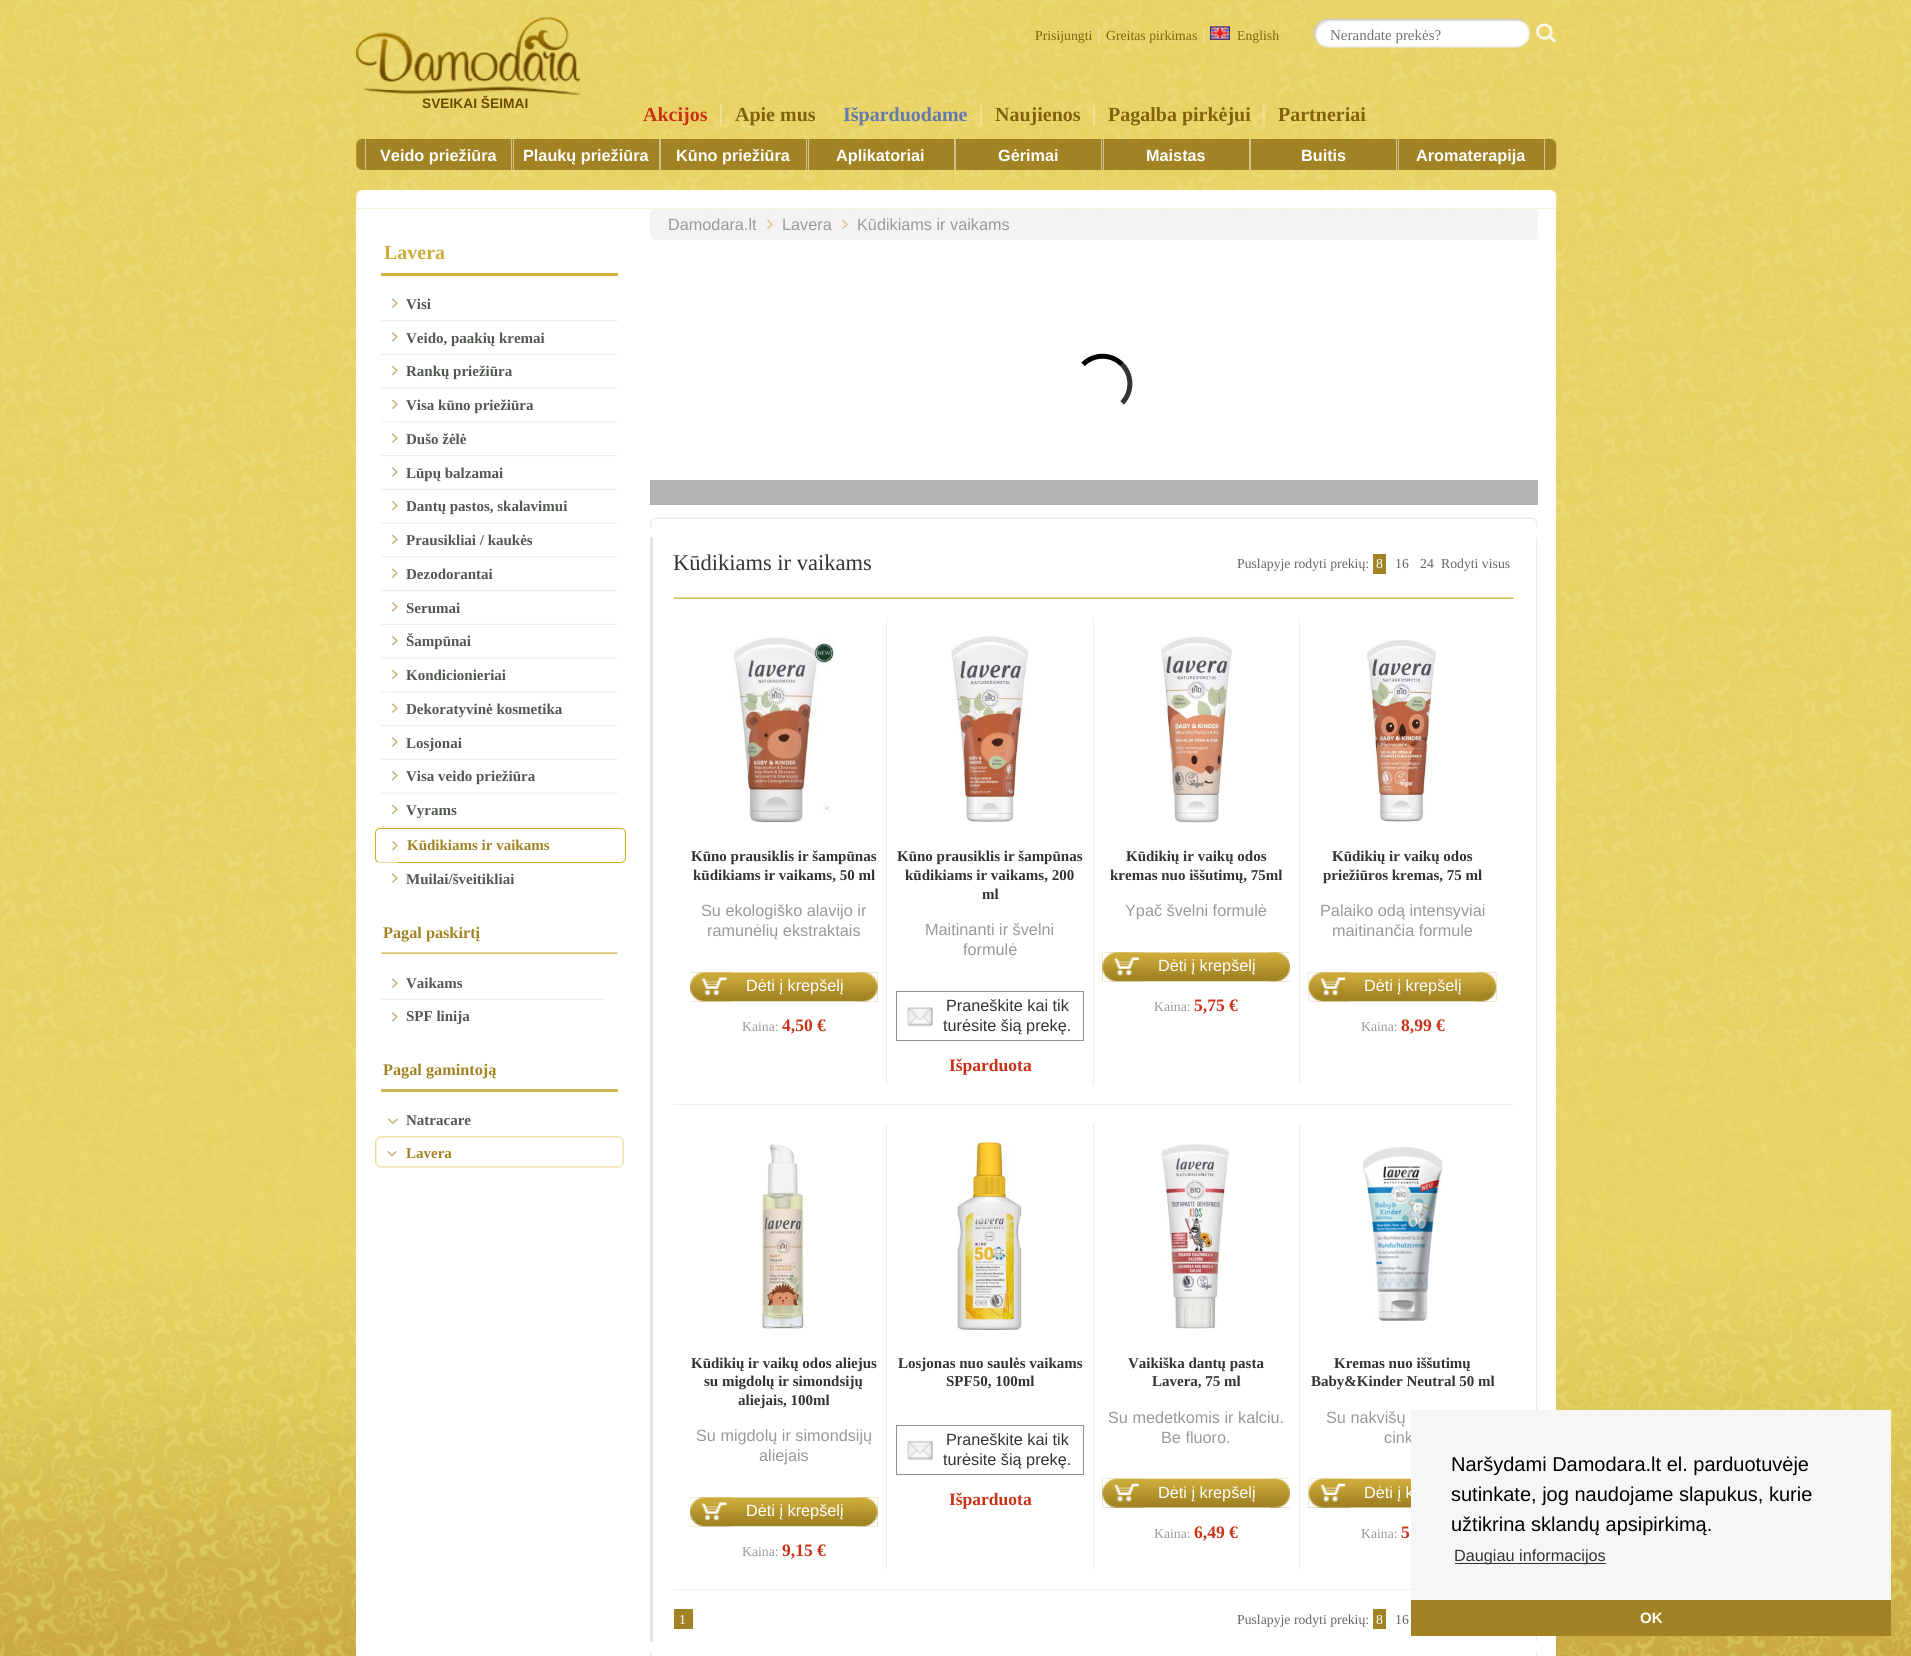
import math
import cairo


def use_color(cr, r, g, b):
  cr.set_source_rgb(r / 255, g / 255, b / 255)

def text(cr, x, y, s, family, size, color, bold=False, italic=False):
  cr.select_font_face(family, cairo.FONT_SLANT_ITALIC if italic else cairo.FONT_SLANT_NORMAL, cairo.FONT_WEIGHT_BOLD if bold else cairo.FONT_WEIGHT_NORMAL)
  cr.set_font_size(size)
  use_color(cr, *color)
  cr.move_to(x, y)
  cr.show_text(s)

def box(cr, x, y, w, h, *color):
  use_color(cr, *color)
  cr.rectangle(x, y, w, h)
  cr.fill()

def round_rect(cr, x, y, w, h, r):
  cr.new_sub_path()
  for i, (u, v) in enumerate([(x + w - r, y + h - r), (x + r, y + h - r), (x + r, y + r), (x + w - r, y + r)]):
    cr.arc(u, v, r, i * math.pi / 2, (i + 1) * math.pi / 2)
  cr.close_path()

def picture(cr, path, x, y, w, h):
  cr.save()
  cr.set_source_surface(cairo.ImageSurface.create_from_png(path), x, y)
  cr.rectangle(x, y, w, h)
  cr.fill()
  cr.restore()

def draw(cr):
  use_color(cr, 255, 255, 255)
  cr.paint()
  picture(cr, "img_01.png", 0, 0, 1911, 1038)
  picture(cr, "img_02.png", 0, 1037, 1911, 619)
  picture(cr, "img_03.png", 1313, 0, 243, 48)
  picture(cr, "img_04.png", 1210, 26, 20, 14)
  box(cr, 1516, 45, 4, 1, 255, 255, 255)
  picture(cr, "img_05.png", 1530, 22, 27, 22)
  picture(cr, "img_06.png", 356, 17, 225, 79)
  picture(cr, "img_07.png", 356, 138, 9, 32)
  box(cr, 366, 139, 1182, 31, 162, 131, 35)
  box(cr, 511, 139, 1, 31, 209, 193, 145)
  box(cr, 365, 139, 1, 31, 209, 193, 145)
  box(cr, 659, 139, 2, 31, 209, 193, 145)
  box(cr, 513, 139, 1, 31, 209, 193, 145)
  box(cr, 806, 139, 1, 31, 209, 193, 145)
  box(cr, 954, 139, 2, 31, 209, 193, 145)
  box(cr, 808, 139, 1, 31, 209, 193, 145)
  box(cr, 1101, 139, 1, 31, 209, 193, 145)
  box(cr, 1249, 139, 2, 31, 209, 193, 145)
  box(cr, 1103, 139, 1, 31, 209, 193, 145)
  box(cr, 1396, 139, 1, 31, 209, 193, 145)
  box(cr, 1544, 139, 1, 31, 209, 193, 145)
  box(cr, 1398, 139, 1, 31, 209, 193, 145)
  picture(cr, "img_08.png", 1547, 138, 10, 32)
  picture(cr, "img_09.png", 356, 190, 1201, 19)
  box(cr, 356, 209, 1200, 1447, 255, 255, 255)
  box(cr, 381, 273, 237, 3, 207, 176, 70)
  picture(cr, "img_10.png", 392, 298, 6, 10)
  picture(cr, "img_11.png", 381, 320, 237, 2)
  picture(cr, "img_12.png", 392, 332, 6, 10)
  picture(cr, "img_13.png", 381, 353, 237, 2)
  picture(cr, "img_14.png", 392, 366, 6, 10)
  picture(cr, "img_15.png", 381, 387, 237, 2)
  picture(cr, "img_16.png", 392, 399, 6, 10)
  picture(cr, "img_17.png", 381, 421, 237, 2)
  picture(cr, "img_18.png", 382, 422, 16, 21)
  picture(cr, "img_11.png", 381, 455, 237, 2)
  picture(cr, "img_12.png", 392, 467, 6, 10)
  picture(cr, "img_13.png", 381, 488, 237, 2)
  picture(cr, "img_14.png", 392, 501, 6, 10)
  picture(cr, "img_15.png", 381, 522, 237, 2)
  picture(cr, "img_16.png", 392, 534, 6, 10)
  picture(cr, "img_17.png", 381, 556, 237, 2)
  picture(cr, "img_18.png", 382, 557, 16, 21)
  picture(cr, "img_11.png", 381, 590, 237, 2)
  picture(cr, "img_12.png", 392, 602, 6, 10)
  picture(cr, "img_13.png", 381, 623, 237, 2)
  picture(cr, "img_14.png", 392, 636, 6, 10)
  picture(cr, "img_15.png", 381, 657, 237, 2)
  picture(cr, "img_16.png", 392, 669, 6, 10)
  picture(cr, "img_17.png", 381, 691, 237, 2)
  picture(cr, "img_18.png", 382, 692, 16, 21)
  picture(cr, "img_11.png", 381, 725, 237, 2)
  picture(cr, "img_12.png", 392, 737, 6, 10)
  picture(cr, "img_13.png", 381, 758, 237, 2)
  picture(cr, "img_14.png", 392, 771, 6, 10)
  picture(cr, "img_15.png", 381, 792, 237, 2)
  picture(cr, "img_16.png", 392, 804, 6, 10)
  picture(cr, "img_17.png", 381, 826, 237, 2)
  picture(cr, "img_19.png", 392, 841, 6, 10)
  round_rect(cr, 375.5, 828.5, 250, 34, 4.5)
  use_color(cr, 214, 170, 31)
  cr.set_line_width(1)
  cr.stroke()
  picture(cr, "img_20.png", 377, 862, 21, 21)
  picture(cr, "img_21.png", 381, 952, 237, 2)
  picture(cr, "img_22.png", 392, 978, 6, 10)
  picture(cr, "img_23.png", 381, 998, 224, 2)
  picture(cr, "img_12.png", 392, 1012, 6, 10)
  box(cr, 381, 1089, 237, 3, 210, 181, 82)
  picture(cr, "img_24.png", 388, 1118, 10, 6)
  picture(cr, "img_25.png", 375, 1136, 249, 32)
  box(cr, 655, 209, 883, 31, 243, 243, 243)
  picture(cr, "img_26.png", 650, 209, 5, 31)
  picture(cr, "img_27.png", 1533, 209, 4, 31)
  picture(cr, "img_28.png", 767, 219, 6, 10)
  picture(cr, "img_28.png", 842, 219, 6, 10)
  cr.new_path()
  cr.move_to(1083, 364.5)
  cr.curve_to(1093.5, 353.5, 1111.5, 353.5, 1122, 364.5)
  use_color(cr, 0, 0, 0)
  cr.set_line_width(5)
  cr.stroke()
  cr.new_path()
  cr.move_to(1122, 364.5)
  cr.curve_to(1132.5, 375, 1132.5, 392.5, 1122, 403)
  cr.set_source_rgba(0, 0, 0, 0.8)
  cr.stroke()
  cr.new_path()
  cr.move_to(1122, 403)
  cr.curve_to(1118, 407, 1113, 409.5, 1108, 410.5)
  cr.curve_to(1081.5, 416, 1064, 383.5, 1083, 364.5)
  cr.set_source_rgba(1, 1, 1, 0.8)
  cr.stroke()
  box(cr, 650, 480, 888, 25, 179, 179, 179)
  picture(cr, "img_29.png", 650, 517, 12, 11)
  picture(cr, "img_30.png", 661, 517, 866, 2)
  picture(cr, "img_31.png", 1526, 517, 12, 11)
  box(cr, 650, 537, 3, 1105, 229, 229, 229)
  box(cr, 1373, 554, 13, 20, 162, 131, 35)
  picture(cr, "img_32.png", 673, 597, 841, 2)
  box(cr, 886, 618, 1, 467, 237, 237, 237)
  picture(cr, "img_33.png", 733, 637, 101, 187)
  picture(cr, "img_34.png", 690, 972, 188, 30)
  picture(cr, "img_35.png", 690, 972, 42, 30)
  picture(cr, "img_36.png", 857, 972, 21, 30)
  box(cr, 1093, 618, 1, 467, 237, 237, 237)
  picture(cr, "img_37.png", 951, 636, 78, 186)
  picture(cr, "img_38.png", 907, 1007, 26, 20)
  cr.rectangle(896.5, 991.5, 187, 49)
  use_color(cr, 145, 145, 145)
  cr.set_line_width(1)
  cr.stroke()
  box(cr, 1299, 618, 1, 467, 237, 237, 237)
  picture(cr, "img_39.png", 1161, 637, 71, 186)
  picture(cr, "img_40.png", 1102, 952, 188, 30)
  picture(cr, "img_41.png", 1102, 952, 42, 30)
  picture(cr, "img_42.png", 1270, 952, 20, 30)
  picture(cr, "img_43.png", 1367, 640, 69, 183)
  picture(cr, "img_44.png", 1308, 972, 189, 30)
  picture(cr, "img_45.png", 1308, 972, 42, 30)
  picture(cr, "img_46.png", 1476, 972, 21, 30)
  picture(cr, "img_47.png", 673, 1104, 841, 1)
  box(cr, 886, 1124, 1, 446, 237, 237, 237)
  picture(cr, "img_48.png", 761, 1144, 43, 185)
  picture(cr, "img_34.png", 690, 1497, 188, 30)
  picture(cr, "img_35.png", 690, 1497, 42, 30)
  picture(cr, "img_36.png", 857, 1497, 21, 30)
  box(cr, 1093, 1124, 1, 446, 237, 237, 237)
  picture(cr, "img_49.png", 957, 1142, 65, 188)
  picture(cr, "img_50.png", 907, 1441, 26, 20)
  cr.rectangle(896.5, 1425.5, 187, 49)
  use_color(cr, 145, 145, 145)
  cr.stroke()
  box(cr, 1299, 1124, 1, 446, 237, 237, 237)
  picture(cr, "img_51.png", 1161, 1144, 68, 185)
  picture(cr, "img_52.png", 1102, 1478, 188, 30)
  picture(cr, "img_53.png", 1102, 1478, 42, 30)
  picture(cr, "img_54.png", 1270, 1478, 20, 30)
  picture(cr, "img_55.png", 1363, 1147, 80, 175)
  picture(cr, "img_56.png", 1308, 1478, 103, 30)
  picture(cr, "img_57.png", 1308, 1478, 42, 30)
  picture(cr, "img_58.png", 673, 1589, 738, 1)
  box(cr, 674, 1609, 19, 20, 162, 131, 35)
  box(cr, 1373, 1609, 13, 20, 162, 131, 35)
  picture(cr, "img_59.png", 1536, 537, 2, 1105)
  picture(cr, "img_60.png", 650, 1651, 2, 5)
  picture(cr, "img_61.png", 1536, 1651, 2, 5)
  box(cr, 1411, 1600, 480, 36, 162, 131, 35)
  text(cr, 1035, 40, "Prisijungti", "Liberation Serif", 13.75, (130, 98, 13))
  text(cr, 1097, 40, "|", "Liberation Sans", 16.25, (239, 226, 157))
  text(cr, 1106, 40, "Greitas pirkimas", "Liberation Serif", 13.75, (130, 98, 13))
  text(cr, 1202, 40, "|", "Liberation Sans", 16.25, (239, 226, 157))
  text(cr, 1237, 40, "English", "Liberation Serif", 13.75, (130, 98, 13))
  text(cr, 1330, 40, "Nerandate prekės?", "Liberation Serif", 15, (117, 117, 117))
  text(cr, 422, 108, "SVEIKAI ŠEIMAI", "Liberation Sans", 13.75, (109, 74, 0), bold=True)
  text(cr, 643, 121, "Akcijos", "Liberation Serif", 20, (202, 49, 23), bold=True)
  text(cr, 718, 121, "|", "Liberation Sans", 22.5, (239, 226, 157))
  text(cr, 735, 121, "Apie mus", "Liberation Serif", 20, (130, 98, 13), bold=True)
  text(cr, 843, 121, "Išparduodame", "Liberation Serif", 20, (98, 122, 173), bold=True)
  text(cr, 978, 121, "|", "Liberation Sans", 22.5, (239, 226, 157))
  text(cr, 995, 121, "Naujienos", "Liberation Serif", 20, (130, 98, 13), bold=True)
  text(cr, 1091, 121, "|", "Liberation Sans", 22.5, (239, 226, 157))
  text(cr, 1108, 121, "Pagalba pirkėjui", "Liberation Serif", 20, (130, 98, 13), bold=True)
  text(cr, 1261, 121, "|", "Liberation Sans", 22.5, (239, 226, 157))
  text(cr, 1278, 121, "Partneriai", "Liberation Serif", 20, (130, 98, 13), bold=True)
  text(cr, 380, 161, "Veido priežiūra", "Liberation Sans", 16.25, (255, 255, 255), bold=True)
  text(cr, 523, 161, "Plaukų priežiūra", "Liberation Sans", 16.25, (255, 255, 255), bold=True)
  text(cr, 676, 161, "Kūno priežiūra", "Liberation Sans", 16.25, (255, 255, 255), bold=True)
  text(cr, 836, 161, "Aplikatoriai", "Liberation Sans", 16.25, (255, 255, 255), bold=True)
  text(cr, 998, 161, "Gėrimai", "Liberation Sans", 16.25, (255, 255, 255), bold=True)
  text(cr, 1146, 161, "Maistas", "Liberation Sans", 16.25, (255, 255, 255), bold=True)
  text(cr, 1301, 161, "Buitis", "Liberation Sans", 16.25, (255, 255, 255), bold=True)
  text(cr, 1416, 161, "Aromaterapija", "Liberation Sans", 16.25, (255, 255, 255), bold=True)
  text(cr, 384, 259, "Lavera", "Liberation Serif", 20, (204, 171, 58), bold=True)
  text(cr, 406, 309, "Visi", "Liberation Serif", 15, (81, 88, 80), bold=True)
  text(cr, 406, 343, "Veido, paakių kremai", "Liberation Serif", 15, (81, 88, 80), bold=True)
  text(cr, 406, 376, "Rankų priežiūra", "Liberation Serif", 15, (81, 88, 80), bold=True)
  text(cr, 406, 410, "Visa kūno priežiūra", "Liberation Serif", 15, (81, 88, 80), bold=True)
  text(cr, 406, 444, "Dušo žėlė", "Liberation Serif", 15, (81, 88, 80), bold=True)
  text(cr, 406, 478, "Lūpų balzamai", "Liberation Serif", 15, (81, 88, 80), bold=True)
  text(cr, 406, 511, "Dantų pastos, skalavimui", "Liberation Serif", 15, (81, 88, 80), bold=True)
  text(cr, 406, 545, "Prausikliai / kaukės", "Liberation Serif", 15, (81, 88, 80), bold=True)
  text(cr, 406, 579, "Dezodorantai", "Liberation Serif", 15, (81, 88, 80), bold=True)
  text(cr, 406, 613, "Serumai", "Liberation Serif", 15, (81, 88, 80), bold=True)
  text(cr, 406, 646, "Šampūnai", "Liberation Serif", 15, (81, 88, 80), bold=True)
  text(cr, 406, 680, "Kondicionieriai", "Liberation Serif", 15, (81, 88, 80), bold=True)
  text(cr, 406, 714, "Dekoratyvinė kosmetika", "Liberation Serif", 15, (81, 88, 80), bold=True)
  text(cr, 406, 748, "Losjonai", "Liberation Serif", 15, (81, 88, 80), bold=True)
  text(cr, 406, 781, "Visa veido priežiūra", "Liberation Serif", 15, (81, 88, 80), bold=True)
  text(cr, 406, 815, "Vyrams", "Liberation Serif", 15, (81, 88, 80), bold=True)
  text(cr, 407, 850, "Kūdikiams ir vaikams", "Liberation Serif", 15, (162, 131, 35), bold=True)
  text(cr, 406, 884, "Muilai/šveitikliai", "Liberation Serif", 15, (81, 88, 80), bold=True)
  text(cr, 383, 938, "Pagal paskirtį", "Liberation Serif", 16.25, (162, 131, 35), bold=True)
  text(cr, 406, 988, "Vaikams", "Liberation Serif", 15, (81, 88, 80), bold=True)
  text(cr, 406, 1021, "SPF linija", "Liberation Serif", 15, (81, 88, 80), bold=True)
  text(cr, 383, 1075, "Pagal gamintoją", "Liberation Serif", 16.25, (162, 131, 35), bold=True)
  text(cr, 406, 1125, "Natracare", "Liberation Serif", 15, (81, 88, 80), bold=True)
  text(cr, 406, 1158, "Lavera", "Liberation Serif", 15, (162, 131, 35), bold=True)
  text(cr, 668, 230, "Damodara.lt", "Liberation Sans", 16.25, (153, 153, 153))
  text(cr, 782, 230, "Lavera", "Liberation Sans", 16.25, (153, 153, 153))
  text(cr, 857, 230, "Kūdikiams ir vaikams", "Liberation Sans", 16.25, (153, 153, 153))
  text(cr, 673, 570, "Kūdikiams ir vaikams", "Liberation Serif", 22.5, (51, 51, 51))
  text(cr, 1237, 568, "Puslapyje rodyti prekių:", "Liberation Serif", 13.75, (102, 102, 102))
  text(cr, 1376, 568, "8", "Liberation Serif", 13.75, (255, 255, 255))
  text(cr, 1395, 568, "16", "Liberation Serif", 13.75, (102, 102, 102))
  text(cr, 1420, 568, "24", "Liberation Serif", 13.75, (102, 102, 102))
  text(cr, 1441, 568, "Rodyti visus", "Liberation Serif", 13.75, (102, 102, 102))
  text(cr, 691, 861, "Kūno prausiklis ir šampūnas", "Liberation Serif", 15, (51, 51, 51), bold=True)
  text(cr, 693, 880, "kūdikiams ir vaikams, 50 ml", "Liberation Serif", 15, (51, 51, 51), bold=True)
  text(cr, 701, 916, "Su ekologiško alavijo ir", "Liberation Sans", 16.25, (153, 153, 153))
  text(cr, 707, 936, "ramunėlių ekstraktais", "Liberation Sans", 16.25, (153, 153, 153))
  text(cr, 746, 991, "Dėti į krepšelį", "Liberation Sans", 16.25, (255, 255, 255))
  text(cr, 742, 1031, "Kaina:", "Liberation Serif", 13.75, (153, 153, 153))
  text(cr, 782, 1031, "4,50 €", "Liberation Serif", 17.5, (202, 49, 23), bold=True)
  text(cr, 897, 861, "Kūno prausiklis ir šampūnas", "Liberation Serif", 15, (51, 51, 51), bold=True)
  text(cr, 905, 880, "kūdikiams ir vaikams, 200", "Liberation Serif", 15, (51, 51, 51), bold=True)
  text(cr, 982, 899, "ml", "Liberation Serif", 15, (51, 51, 51), bold=True)
  text(cr, 925, 935, "Maitinanti ir švelni", "Liberation Sans", 16.25, (153, 153, 153))
  text(cr, 963, 955, "formulė", "Liberation Sans", 16.25, (153, 153, 153))
  text(cr, 946, 1011, "Praneškite kai tik", "Liberation Sans", 16.25, (51, 51, 51))
  text(cr, 943, 1031, "turėsite šią prekę.", "Liberation Sans", 16.25, (51, 51, 51))
  text(cr, 949, 1071, "Išparduota", "Liberation Serif", 17.5, (202, 49, 23), bold=True)
  text(cr, 1126, 861, "Kūdikių ir vaikų odos", "Liberation Serif", 15, (51, 51, 51), bold=True)
  text(cr, 1110, 880, "kremas nuo iššutimų, 75ml", "Liberation Serif", 15, (51, 51, 51), bold=True)
  text(cr, 1125, 916, "Ypač švelni formulė", "Liberation Sans", 16.25, (153, 153, 153))
  text(cr, 1158, 971, "Dėti į krepšelį", "Liberation Sans", 16.25, (255, 255, 255))
  text(cr, 1154, 1011, "Kaina:", "Liberation Serif", 13.75, (153, 153, 153))
  text(cr, 1194, 1011, "5,75 €", "Liberation Serif", 17.5, (202, 49, 23), bold=True)
  text(cr, 1332, 861, "Kūdikių ir vaikų odos", "Liberation Serif", 15, (51, 51, 51), bold=True)
  text(cr, 1323, 880, "priežiūros kremas, 75 ml", "Liberation Serif", 15, (51, 51, 51), bold=True)
  text(cr, 1320, 916, "Palaiko odą intensyviai", "Liberation Sans", 16.25, (153, 153, 153))
  text(cr, 1332, 936, "maitinančia formule", "Liberation Sans", 16.25, (153, 153, 153))
  text(cr, 1364, 991, "Dėti į krepšelį", "Liberation Sans", 16.25, (255, 255, 255))
  text(cr, 1361, 1031, "Kaina:", "Liberation Serif", 13.75, (153, 153, 153))
  text(cr, 1401, 1031, "8,99 €", "Liberation Serif", 17.5, (202, 49, 23), bold=True)
  text(cr, 691, 1368, "Kūdikių ir vaikų odos aliejus", "Liberation Serif", 15, (51, 51, 51), bold=True)
  text(cr, 704, 1386, "su migdolų ir simondsijų", "Liberation Serif", 15, (51, 51, 51), bold=True)
  text(cr, 738, 1405, "aliejais, 100ml", "Liberation Serif", 15, (51, 51, 51), bold=True)
  text(cr, 696, 1441, "Su migdolų ir simondsijų", "Liberation Sans", 16.25, (153, 153, 153))
  text(cr, 759, 1461, "aliejais", "Liberation Sans", 16.25, (153, 153, 153))
  text(cr, 746, 1516, "Dėti į krepšelį", "Liberation Sans", 16.25, (255, 255, 255))
  text(cr, 742, 1556, "Kaina:", "Liberation Serif", 13.75, (153, 153, 153))
  text(cr, 782, 1556, "9,15 €", "Liberation Serif", 17.5, (202, 49, 23), bold=True)
  text(cr, 898, 1368, "Losjonas nuo saulės vaikams", "Liberation Serif", 15, (51, 51, 51), bold=True)
  text(cr, 946, 1386, "SPF50, 100ml", "Liberation Serif", 15, (51, 51, 51), bold=True)
  text(cr, 946, 1445, "Praneškite kai tik", "Liberation Sans", 16.25, (51, 51, 51))
  text(cr, 943, 1465, "turėsite šią prekę.", "Liberation Sans", 16.25, (51, 51, 51))
  text(cr, 949, 1505, "Išparduota", "Liberation Serif", 17.5, (202, 49, 23), bold=True)
  text(cr, 1128, 1368, "Vaikiška dantų pasta", "Liberation Serif", 15, (51, 51, 51), bold=True)
  text(cr, 1152, 1386, "Lavera, 75 ml", "Liberation Serif", 15, (51, 51, 51), bold=True)
  text(cr, 1108, 1423, "Su medetkomis ir kalciu.", "Liberation Sans", 16.25, (153, 153, 153))
  text(cr, 1161, 1443, "Be fluoro.", "Liberation Sans", 16.25, (153, 153, 153))
  text(cr, 1158, 1498, "Dėti į krepšelį", "Liberation Sans", 16.25, (255, 255, 255))
  text(cr, 1154, 1538, "Kaina:", "Liberation Serif", 13.75, (153, 153, 153))
  text(cr, 1194, 1538, "6,49 €", "Liberation Serif", 17.5, (202, 49, 23), bold=True)
  text(cr, 1334, 1368, "Kremas nuo iššutimų", "Liberation Serif", 15, (51, 51, 51), bold=True)
  text(cr, 1311, 1386, "Baby&Kinder Neutral 50 ml", "Liberation Serif", 15, (51, 51, 51), bold=True)
  text(cr, 1326, 1423, "Su nakvišų", "Liberation Sans", 16.25, (153, 153, 153))
  text(cr, 1384, 1443, "cink", "Liberation Sans", 16.25, (153, 153, 153))
  text(cr, 1364, 1498, "Dėti į k", "Liberation Sans", 16.25, (255, 255, 255))
  text(cr, 1361, 1538, "Kaina:", "Liberation Serif", 13.75, (153, 153, 153))
  text(cr, 1401, 1538, "5", "Liberation Serif", 17.5, (202, 49, 23), bold=True)
  text(cr, 679, 1624, "1", "Liberation Serif", 13.75, (255, 255, 255))
  text(cr, 1237, 1624, "Puslapyje rodyti prekių:", "Liberation Serif", 13.75, (102, 102, 102))
  text(cr, 1376, 1624, "8", "Liberation Serif", 13.75, (255, 255, 255))
  text(cr, 1395, 1624, "16", "Liberation Serif", 13.75, (102, 102, 102))
  box(cr, 1411, 1410, 480, 190, 246, 246, 246)
  text(cr, 1451, 1471, "Naršydami Damodara.lt el. parduotuvėje", "Liberation Sans", 20, (0, 0, 0))
  text(cr, 1451, 1501, "sutinkate, jog naudojame slapukus, kurie", "Liberation Sans", 20, (0, 0, 0))
  text(cr, 1451, 1531, "užtikrina sklandų apsipirkimą.", "Liberation Sans", 20, (0, 0, 0))
  box(cr, 1455, 1563, 151, 1, 49, 49, 49)
  text(cr, 1454, 1561, "Daugiau informacijos", "Liberation Sans", 16.25, (51, 51, 51))
  text(cr, 1640, 1623, "OK", "Liberation Sans", 15, (255, 255, 255), bold=True)


surface = cairo.ImageSurface(cairo.FORMAT_RGB24, 1911, 1656)
cr = cairo.Context(surface)
options = cairo.FontOptions()
options.set_hint_metrics(cairo.HINT_METRICS_OFF)
options.set_hint_style(cairo.HINT_STYLE_NONE)
cr.set_font_options(options)
cr.set_miter_limit(4)
draw(cr)
surface.write_to_png("out.png")
